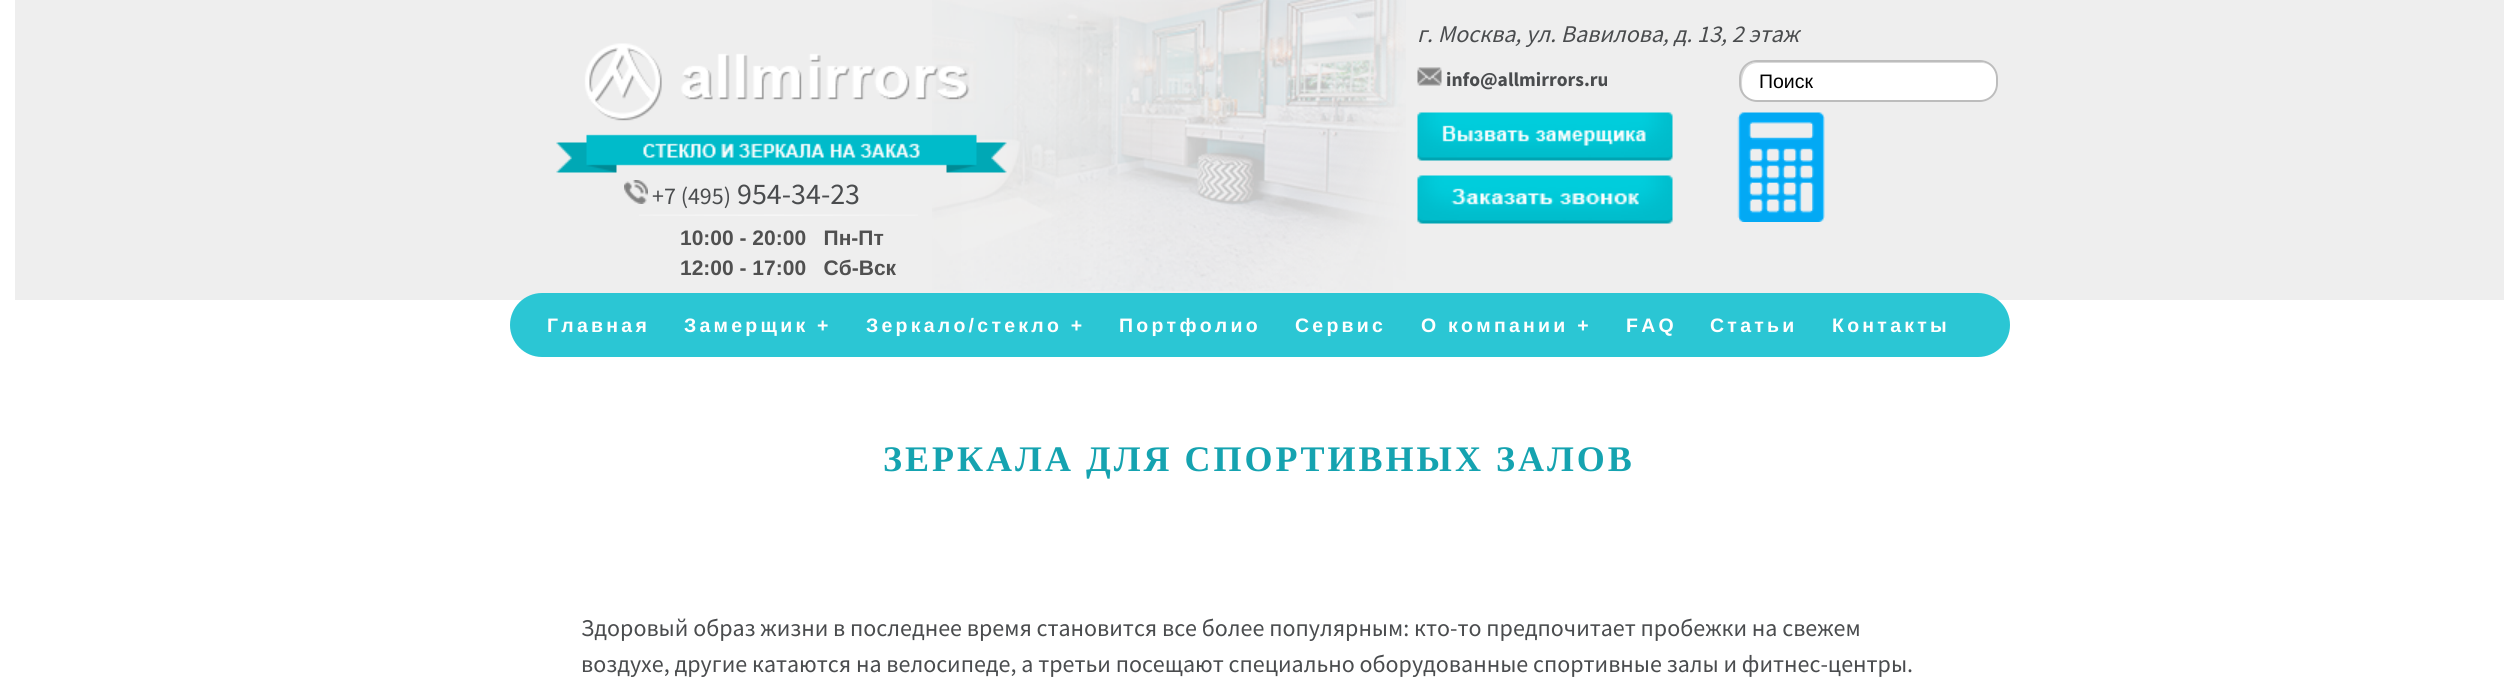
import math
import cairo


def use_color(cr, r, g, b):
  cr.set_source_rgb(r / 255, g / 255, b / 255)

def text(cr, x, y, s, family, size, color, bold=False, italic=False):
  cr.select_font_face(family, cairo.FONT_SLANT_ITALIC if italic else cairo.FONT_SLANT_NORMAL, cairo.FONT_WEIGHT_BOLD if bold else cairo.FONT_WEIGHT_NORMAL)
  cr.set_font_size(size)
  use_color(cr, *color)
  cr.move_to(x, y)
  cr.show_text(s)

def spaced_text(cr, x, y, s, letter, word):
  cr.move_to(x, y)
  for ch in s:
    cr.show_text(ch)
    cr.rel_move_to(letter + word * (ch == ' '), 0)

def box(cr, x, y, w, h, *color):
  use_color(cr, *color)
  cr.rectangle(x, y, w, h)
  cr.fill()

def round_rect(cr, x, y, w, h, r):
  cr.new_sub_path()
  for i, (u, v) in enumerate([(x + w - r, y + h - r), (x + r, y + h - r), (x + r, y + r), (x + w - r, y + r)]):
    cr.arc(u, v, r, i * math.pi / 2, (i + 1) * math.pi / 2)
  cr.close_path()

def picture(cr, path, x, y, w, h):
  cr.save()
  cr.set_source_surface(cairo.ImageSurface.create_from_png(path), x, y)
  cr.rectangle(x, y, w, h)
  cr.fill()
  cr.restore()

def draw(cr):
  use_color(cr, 255, 255, 255)
  cr.paint()
  box(cr, 15, 0, 2489, 300, 238, 238, 238)
  picture(cr, "img_01.png", 932, 0, 474, 291)
  picture(cr, "img_02.png", 1417, 67, 25, 19)
  use_color(cr, 255, 255, 255)
  round_rect(cr, 1739, 60, 259, 42, 18)
  cr.fill()
  use_color(cr, 217, 217, 217)
  cr.new_path()
  cr.move_to(1758, 63)
  cr.line_to(1982, 63)
  cr.curve_to(1985, 63, 1987, 64, 1989, 65)
  cr.curve_to(1986, 63, 1983, 62, 1980, 62)
  cr.line_to(1757, 62)
  cr.curve_to(1748, 62, 1740, 70, 1740, 79)
  cr.line_to(1740, 84)
  cr.curve_to(1740, 90, 1743, 95, 1747, 98)
  cr.curve_to(1743, 94, 1742, 89, 1742, 83)
  cr.curve_to(1742, 73, 1746, 63, 1758, 63)
  cr.close_path()
  cr.fill()
  round_rect(cr, 1740, 61, 257, 40, 17)
  use_color(cr, 189, 189, 189)
  cr.stroke()
  picture(cr, "img_03.png", 1417, 112, 256, 49)
  picture(cr, "img_04.png", 1737, 112, 88, 110)
  picture(cr, "img_05.png", 1417, 175, 256, 49)
  picture(cr, "img_06.png", 556, 43, 451, 130)
  picture(cr, "img_07.png", 624, 180, 24, 24)
  picture(cr, "img_08.png", 639, 214, 279, 2)
  use_color(cr, 43, 198, 212)
  round_rect(cr, 510, 293, 1500, 64, 32)
  cr.fill()
  text(cr, 1417, 42, "г. Москва, ул. Вавилова, д. 13, 2 этаж", "Source Sans Pro", 24, (74, 76, 78), italic=True)
  text(cr, 1446, 86, "info@allmirrors.ru", "Source Sans Pro", 19.5, (74, 76, 78), bold=True)
  text(cr, 1759, 88, "Поиск", "Liberation Sans", 19.5, (0, 0, 0))
  text(cr, 652, 204, "+7 (495)", "Source Sans Pro", 24, (74, 76, 78))
  text(cr, 737, 204, "954-34-23", "Source Sans Pro", 30, (74, 76, 78))
  text(cr, 680, 245, "10:00 - 20:00   Пн-Пт", "Liberation Sans", 21, (80, 80, 80), bold=True)
  text(cr, 680, 275, "12:00 - 17:00   Сб-Вск", "Liberation Sans", 21, (80, 80, 80), bold=True)
  cr.set_font_size(19.5)
  use_color(cr, 255, 255, 255)
  spaced_text(cr, 547, 332, "Главная", 3.25, 0)
  spaced_text(cr, 684, 332, "Замерщик +", 3.25, 0)
  spaced_text(cr, 866, 332, "Зеркало/стекло +", 3.25, 0)
  spaced_text(cr, 1119, 332, "Портфолио", 3.25, 0)
  spaced_text(cr, 1295, 332, "Сервис", 3.25, 0)
  spaced_text(cr, 1421, 332, "О компании +", 3.25, 0)
  spaced_text(cr, 1626, 332, "FAQ", 3.25, 0)
  spaced_text(cr, 1710, 332, "Статьи", 3.25, 0)
  spaced_text(cr, 1832, 332, "Контакты", 3.25, 0)
  cr.select_font_face("Liberation Serif", cairo.FONT_SLANT_NORMAL, cairo.FONT_WEIGHT_BOLD)
  cr.set_font_size(36)
  use_color(cr, 21, 163, 176)
  spaced_text(cr, 883, 471, "ЗЕРКАЛА ДЛЯ СПОРТИВНЫХ ЗАЛОВ", 3, 0)
  text(cr, 581, 636, "Здоровый образ жизни в последнее время становится все более популярным: кто-то предпочитает пробежки на свежем", "Source Sans Pro", 24, (74, 76, 78))
  text(cr, 581, 672, "воздухе, другие катаются на велосипеде, а третьи посещают специально оборудованные спортивные залы и фитнес-центры.", "Source Sans Pro", 24, (74, 76, 78))


surface = cairo.ImageSurface(cairo.FORMAT_RGB24, 2518, 679)
cr = cairo.Context(surface)
options = cairo.FontOptions()
options.set_hint_metrics(cairo.HINT_METRICS_OFF)
options.set_hint_style(cairo.HINT_STYLE_NONE)
cr.set_font_options(options)
cr.set_miter_limit(4)
draw(cr)
surface.write_to_png("out.png")
